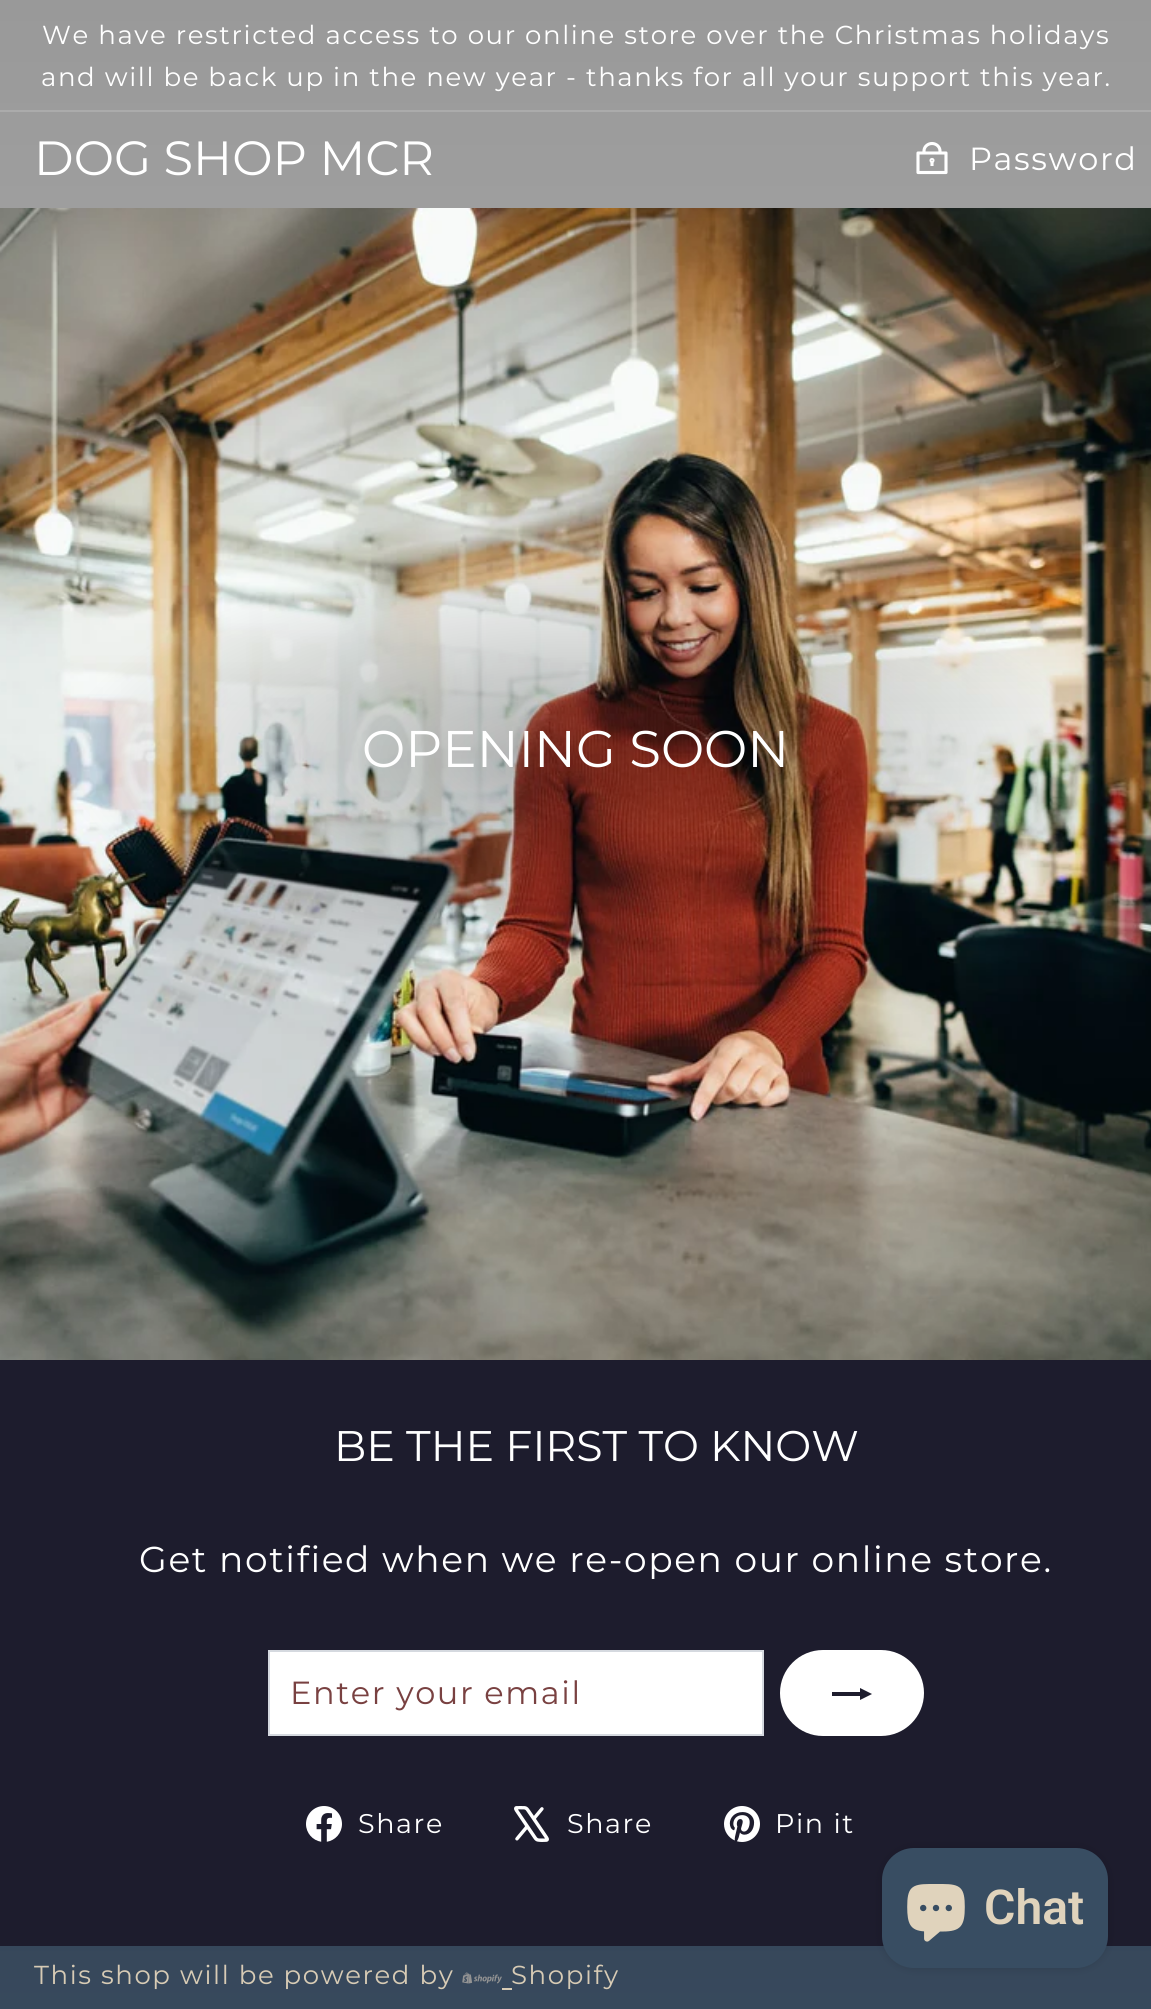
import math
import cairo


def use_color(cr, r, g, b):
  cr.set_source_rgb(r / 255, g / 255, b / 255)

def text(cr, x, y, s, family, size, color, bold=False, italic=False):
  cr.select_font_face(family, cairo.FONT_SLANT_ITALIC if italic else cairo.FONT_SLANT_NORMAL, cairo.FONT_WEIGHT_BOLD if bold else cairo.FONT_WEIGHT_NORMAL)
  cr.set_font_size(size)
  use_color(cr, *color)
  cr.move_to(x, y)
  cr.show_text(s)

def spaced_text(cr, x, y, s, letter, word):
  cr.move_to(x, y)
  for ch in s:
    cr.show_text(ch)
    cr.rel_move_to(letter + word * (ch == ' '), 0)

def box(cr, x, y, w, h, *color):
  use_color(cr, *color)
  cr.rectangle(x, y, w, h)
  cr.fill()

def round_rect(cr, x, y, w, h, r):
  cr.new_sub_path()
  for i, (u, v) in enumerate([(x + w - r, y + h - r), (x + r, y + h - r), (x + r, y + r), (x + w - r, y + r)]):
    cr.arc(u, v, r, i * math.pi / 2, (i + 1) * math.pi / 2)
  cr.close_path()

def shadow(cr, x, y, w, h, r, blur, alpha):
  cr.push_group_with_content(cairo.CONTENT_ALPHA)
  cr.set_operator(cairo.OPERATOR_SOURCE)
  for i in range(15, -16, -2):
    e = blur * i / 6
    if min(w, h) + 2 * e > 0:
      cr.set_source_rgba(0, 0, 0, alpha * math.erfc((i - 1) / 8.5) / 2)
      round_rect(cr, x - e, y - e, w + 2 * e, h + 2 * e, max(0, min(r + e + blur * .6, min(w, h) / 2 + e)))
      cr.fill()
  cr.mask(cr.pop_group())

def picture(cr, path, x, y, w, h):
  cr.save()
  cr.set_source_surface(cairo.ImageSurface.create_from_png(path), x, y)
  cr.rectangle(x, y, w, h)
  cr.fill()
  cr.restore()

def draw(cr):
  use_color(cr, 255, 255, 255)
  cr.paint()
  box(cr, 0, 1946, 1151, 63, 57, 75, 95)
  picture(cr, "img_05.png", 462, 1972, 40, 12)
  box(cr, 502, 1988, 10, 2, 224, 211, 188)
  cr.select_font_face("Montserrat")
  cr.set_font_size(26)
  spaced_text(cr, 34, 1984, "This shop will be powered by", 1.6, 0)
  spaced_text(cr, 511, 1984, "Shopify", 1.6, 0)
  gradient = cairo.LinearGradient(576, 0, 576, 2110)
  gradient.add_color_stop_rgba(0, 0, 0, 0, 0.4)
  gradient.add_color_stop_rgba(0.5, 0, 0, 0, 0.3)
  gradient.add_color_stop_rgba(1, 0, 0, 0, 0)
  cr.set_source(gradient)
  cr.rectangle(0, 0, 1151, 2009)
  cr.fill()
  box(cr, 0, 110, 1151, 2, 171, 171, 171)
  use_color(cr, 255, 255, 255)
  spaced_text(cr, 41, 86, "and will be back up in the new year - thanks for all your support this year.", 1.6, 0)
  spaced_text(cr, 42, 44, "We have restricted access to our online store over the Christmas holidays", 1.6, 0)
  text(cr, 34, 175, "DOG SHOP MCR", "Montserrat", 48, (255, 255, 255))
  cr.new_path()
  cr.move_to(924, 153)
  cr.line_to(924, 151)
  cr.curve_to(924, 146.5, 928, 143.5, 932, 143.5)
  cr.curve_to(936.5, 143.5, 940, 147, 940, 151)
  cr.line_to(940, 153)
  cr.move_to(918, 153)
  cr.line_to(946, 153)
  cr.line_to(946, 172.5)
  cr.line_to(918, 172.5)
  cr.close_path()
  cr.move_to(932, 161.5)
  cr.line_to(932, 166)
  cr.set_line_width(3.1)
  cr.set_line_join(cairo.LINE_JOIN_ROUND)
  cr.stroke()
  cr.arc(932, 160.4, 1, 0, 2 * math.pi)
  cr.set_line_join(cairo.LINE_JOIN_MITER)
  cr.stroke()
  cr.set_font_size(32)
  spaced_text(cr, 969, 170, "Password", 1.6, 0)
  picture(cr, "img_01.png", 0, 208, 1151, 1152)
  text(cr, 362, 767, "OPENING SOON", "Montserrat", 51.5, (255, 255, 255))
  box(cr, 0, 1360, 1151, 586, 29, 28, 45)
  picture(cr, "img_04.png", 724, 1806, 36, 36)
  picture(cr, "img_03.png", 514, 1806, 35, 36)
  picture(cr, "img_02.png", 306, 1806, 36, 36)
  use_color(cr, 255, 255, 255)
  round_rect(cr, 780, 1650, 144, 86, 43)
  cr.fill()
  use_color(cr, 29, 28, 45)
  cr.new_path()
  cr.move_to(832, 1696)
  cr.line_to(832, 1692)
  cr.line_to(860, 1692)
  cr.line_to(860, 1688)
  cr.line_to(872, 1694)
  cr.line_to(860, 1700)
  cr.line_to(860, 1696)
  cr.close_path()
  cr.fill()
  cr.set_font_size(27)
  use_color(cr, 255, 255, 255)
  spaced_text(cr, 775, 1833, "Pin it", 1.6, 0)
  spaced_text(cr, 567, 1833, "Share", 1.6, 0)
  spaced_text(cr, 358, 1833, "Share", 1.6, 0)
  cr.rectangle(269, 1651, 494, 84)
  cr.fill_preserve()
  use_color(cr, 213, 217, 223)
  cr.set_line_width(2)
  cr.stroke()
  cr.set_font_size(32)
  use_color(cr, 121, 65, 65)
  spaced_text(cr, 290, 1704, "Enter your email", 1.6, 0)
  cr.set_font_size(36)
  use_color(cr, 255, 255, 255)
  spaced_text(cr, 139, 1572, "Get notified when we re-open our online store.", 1.6, 0)
  text(cr, 334, 1461, "BE THE FIRST TO KNOW", "Montserrat", 42.8, (255, 255, 255))
  use_color(cr, 0, 0, 0)
  shadow(cr, 882, 1848, 226, 120, 32, 5, 0.15)
  use_color(cr, 56, 77, 98)
  round_rect(cr, 882, 1848, 226, 120, 32)
  cr.fill()
  picture(cr, "img_06.png", 907, 1884, 58, 58)
  text(cr, 984, 1924, "Chat", "Roboto SemiBold", 48, (224, 211, 188))


surface = cairo.ImageSurface(cairo.FORMAT_RGB24, 1151, 2009)
cr = cairo.Context(surface)
options = cairo.FontOptions()
options.set_hint_metrics(cairo.HINT_METRICS_OFF)
options.set_hint_style(cairo.HINT_STYLE_NONE)
cr.set_font_options(options)
cr.set_miter_limit(4)
draw(cr)
surface.write_to_png("out.png")
